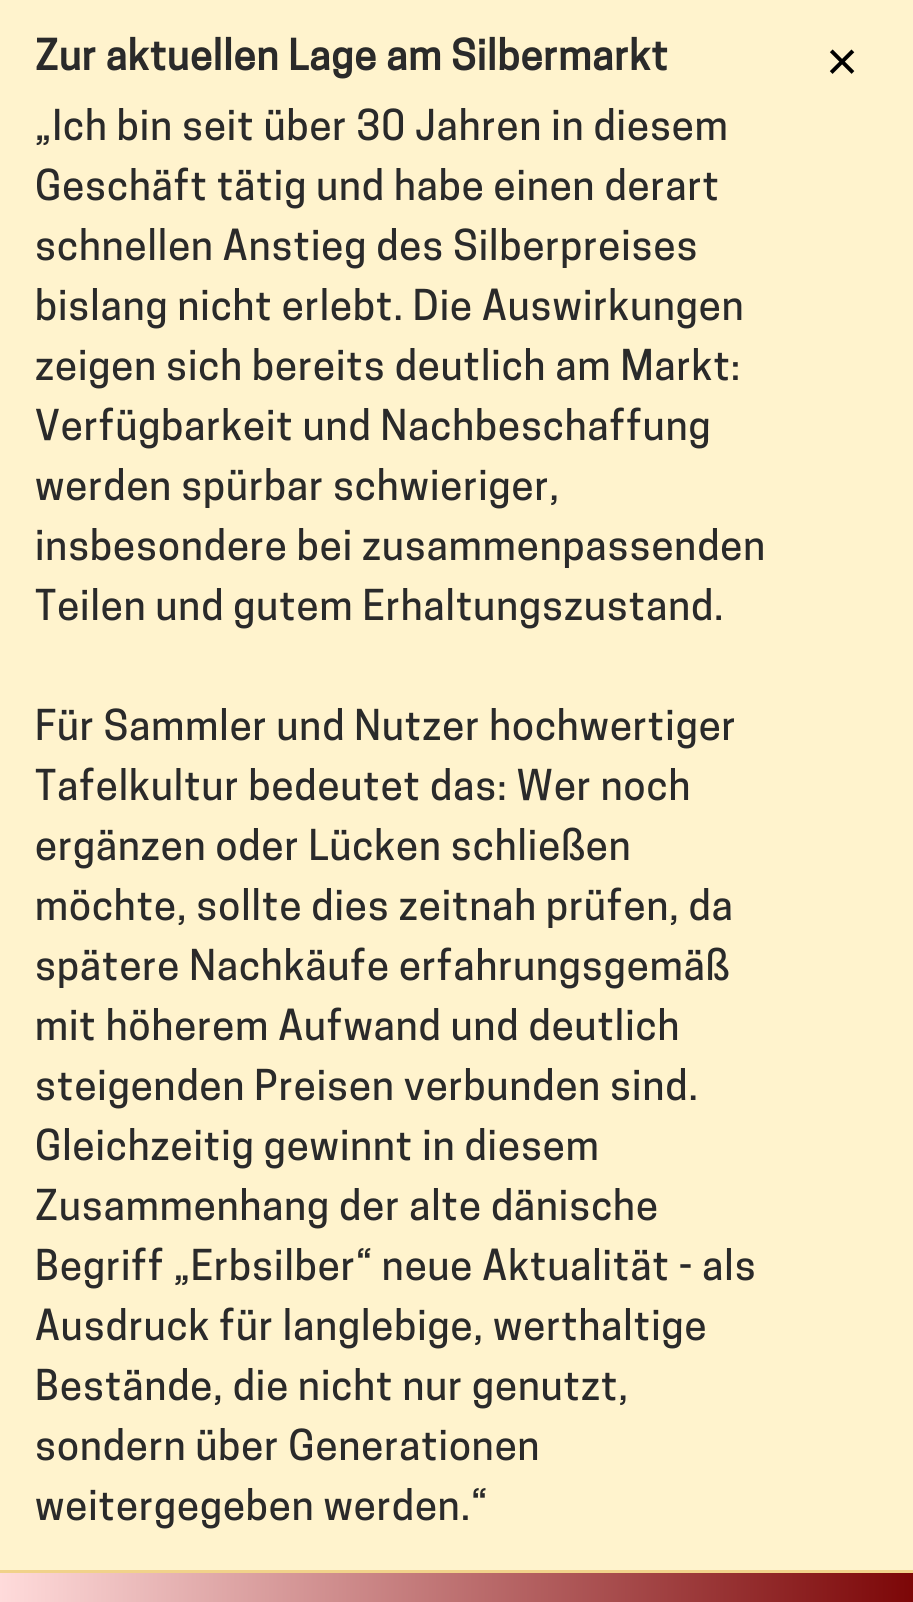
import math
import cairo


def use_color(cr, r, g, b):
  cr.set_source_rgb(r / 255, g / 255, b / 255)

def spaced_text(cr, x, y, s, letter, word):
  cr.move_to(x, y)
  for ch in s:
    cr.show_text(ch)
    cr.rel_move_to(letter + word * (ch == ' '), 0)

def box(cr, x, y, w, h, *color):
  use_color(cr, *color)
  cr.rectangle(x, y, w, h)
  cr.fill()

def draw(cr):
  use_color(cr, 255, 255, 255)
  cr.paint()
  box(cr, 0, 0, 913, 1570, 255, 243, 205)
  box(cr, 0, 1570, 913, 3, 241, 210, 138)
  gradient = cairo.LinearGradient(0, 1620, 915, 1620)
  gradient.add_color_stop_rgba(0, 1, 0.859, 0.859, 1)
  gradient.add_color_stop_rgba(1, 0.486, 0.024, 0.027, 1)
  cr.set_source(gradient)
  cr.rectangle(0, 1573, 913, 29)
  cr.fill()
  cr.select_font_face("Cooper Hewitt", cairo.FONT_SLANT_NORMAL, cairo.FONT_WEIGHT_BOLD)
  cr.set_font_size(40)
  use_color(cr, 42, 42, 42)
  spaced_text(cr, 35, 70, "Zur aktuellen Lage am Silbermarkt", 1, 0)
  cr.select_font_face("Cooper Hewitt Medium")
  spaced_text(cr, 35, 140, "„Ich bin seit über 30 Jahren in diesem", 1, 0)
  spaced_text(cr, 35, 200, "Geschäft tätig und habe einen derart", 1, 0)
  spaced_text(cr, 35, 260, "schnellen Anstieg des Silberpreises", 1, 0)
  spaced_text(cr, 35, 320, "bislang nicht erlebt. Die Auswirkungen", 1, 0)
  spaced_text(cr, 35, 380, "zeigen sich bereits deutlich am Markt:", 1, 0)
  spaced_text(cr, 35, 440, "Verfügbarkeit und Nachbeschaffung", 1, 0)
  spaced_text(cr, 35, 500, "werden spürbar schwieriger,", 1, 0)
  spaced_text(cr, 35, 560, "insbesondere bei zusammenpassenden", 1, 0)
  spaced_text(cr, 35, 620, "Teilen und gutem Erhaltungszustand.", 1, 0)
  spaced_text(cr, 35, 740, "Für Sammler und Nutzer hochwertiger", 1, 0)
  spaced_text(cr, 35, 800, "Tafelkultur bedeutet das: Wer noch", 1, 0)
  spaced_text(cr, 35, 860, "ergänzen oder Lücken schließen", 1, 0)
  spaced_text(cr, 35, 920, "möchte, sollte dies zeitnah prüfen, da", 1, 0)
  spaced_text(cr, 35, 980, "spätere Nachkäufe erfahrungsgemäß", 1, 0)
  spaced_text(cr, 35, 1040, "mit höherem Aufwand und deutlich", 1, 0)
  spaced_text(cr, 35, 1100, "steigenden Preisen verbunden sind.", 1, 0)
  spaced_text(cr, 35, 1160, "Gleichzeitig gewinnt in diesem", 1, 0)
  spaced_text(cr, 35, 1220, "Zusammenhang der alte dänische", 1, 0)
  spaced_text(cr, 35, 1280, "Begriff „Erbsilber“ neue Aktualität - als", 1, 0)
  spaced_text(cr, 35, 1340, "Ausdruck für langlebige, werthaltige", 1, 0)
  spaced_text(cr, 35, 1400, "Bestände, die nicht nur genutzt,", 1, 0)
  spaced_text(cr, 35, 1460, "sondern über Generationen", 1, 0)
  spaced_text(cr, 35, 1520, "weitergegeben werden.“", 1, 0)
  cr.select_font_face("Liberation Sans")
  cr.set_font_size(55)
  use_color(cr, 0, 0, 0)
  spaced_text(cr, 826, 80, "×", 1, 0)


surface = cairo.ImageSurface(cairo.FORMAT_RGB24, 913, 1602)
cr = cairo.Context(surface)
options = cairo.FontOptions()
options.set_hint_metrics(cairo.HINT_METRICS_OFF)
options.set_hint_style(cairo.HINT_STYLE_NONE)
cr.set_font_options(options)
cr.set_miter_limit(4)
draw(cr)
surface.write_to_png("out.png")
